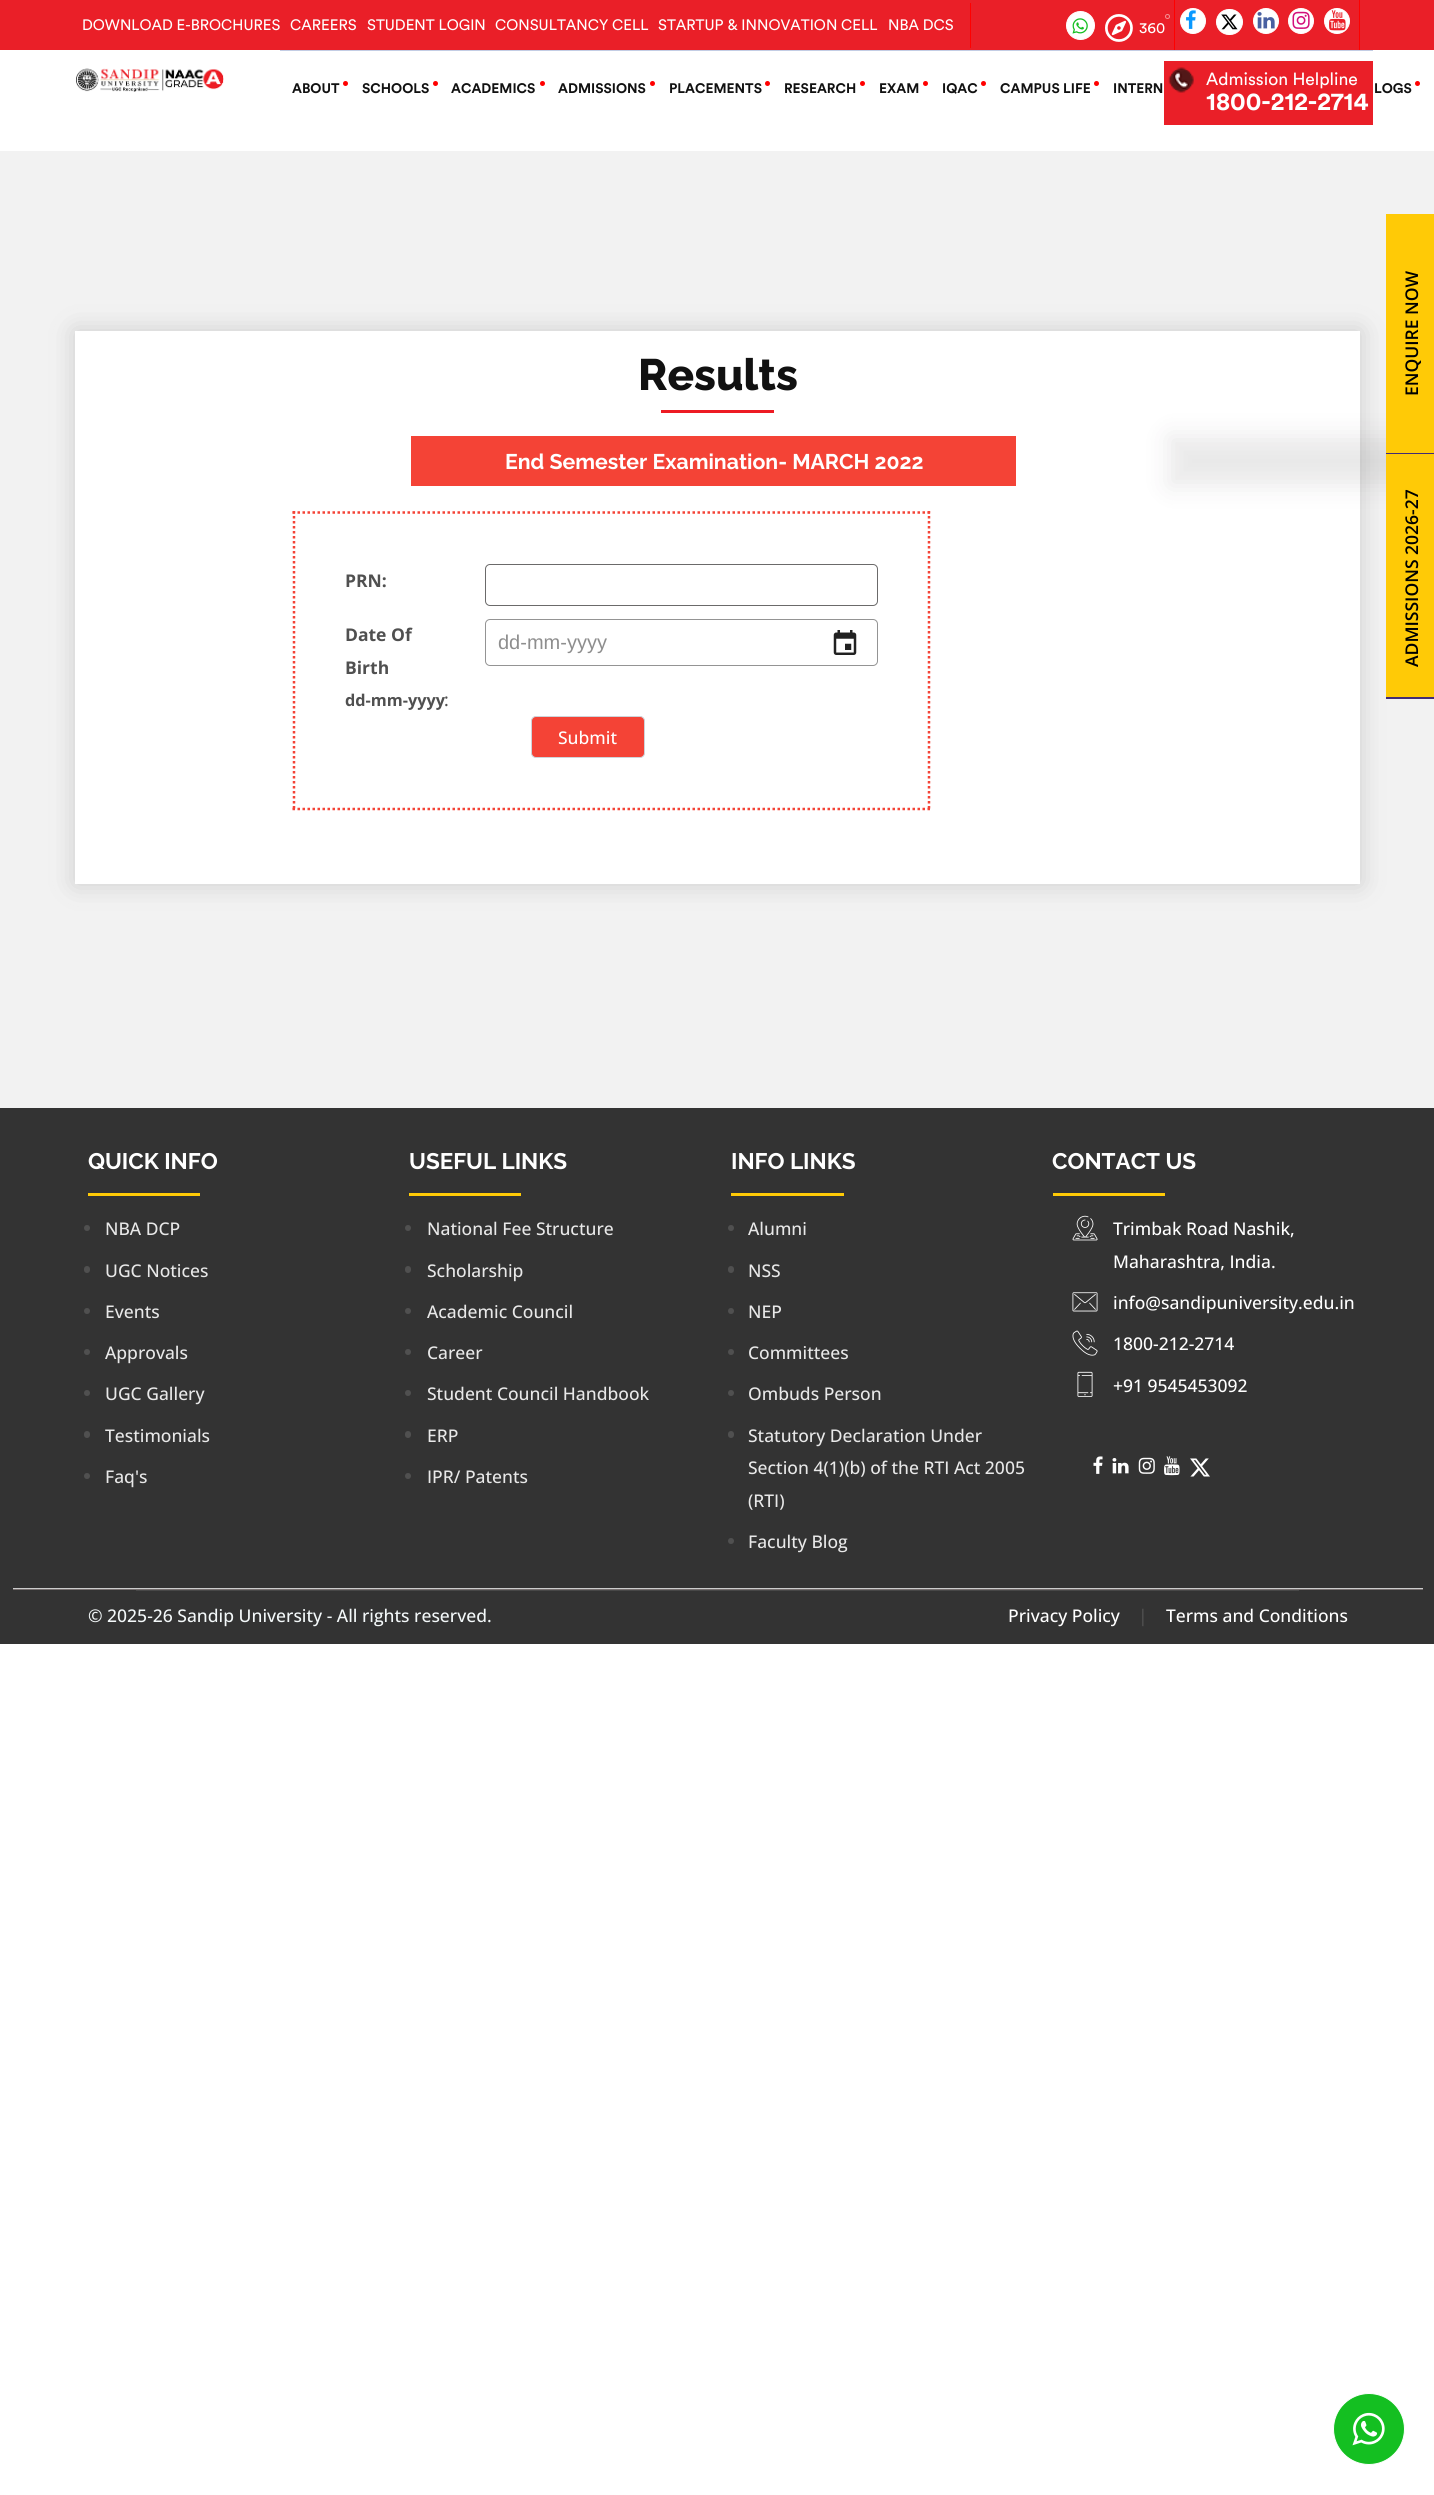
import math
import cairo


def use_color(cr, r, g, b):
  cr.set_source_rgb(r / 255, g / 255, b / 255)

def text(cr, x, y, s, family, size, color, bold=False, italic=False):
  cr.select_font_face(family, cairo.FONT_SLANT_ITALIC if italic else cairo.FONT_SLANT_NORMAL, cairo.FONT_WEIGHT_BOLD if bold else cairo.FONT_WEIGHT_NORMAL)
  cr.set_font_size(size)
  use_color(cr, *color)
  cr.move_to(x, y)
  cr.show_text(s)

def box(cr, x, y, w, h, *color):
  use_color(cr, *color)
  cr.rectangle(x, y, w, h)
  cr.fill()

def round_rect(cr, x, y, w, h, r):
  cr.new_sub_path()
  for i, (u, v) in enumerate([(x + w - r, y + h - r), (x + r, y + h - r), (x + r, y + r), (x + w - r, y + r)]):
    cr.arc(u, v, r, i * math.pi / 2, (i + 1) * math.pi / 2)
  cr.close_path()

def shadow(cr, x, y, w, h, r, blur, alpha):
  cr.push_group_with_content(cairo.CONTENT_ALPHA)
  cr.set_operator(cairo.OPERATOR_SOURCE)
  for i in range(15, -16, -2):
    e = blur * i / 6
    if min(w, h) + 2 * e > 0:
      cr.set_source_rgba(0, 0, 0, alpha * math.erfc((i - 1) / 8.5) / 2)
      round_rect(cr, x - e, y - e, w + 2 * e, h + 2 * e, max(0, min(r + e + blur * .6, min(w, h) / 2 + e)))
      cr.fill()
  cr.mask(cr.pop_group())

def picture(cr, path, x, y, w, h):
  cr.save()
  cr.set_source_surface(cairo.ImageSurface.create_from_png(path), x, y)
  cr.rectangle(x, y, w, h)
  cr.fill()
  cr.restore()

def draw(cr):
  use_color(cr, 255, 255, 255)
  cr.paint()
  box(cr, 0, 0, 1434, 50, 234, 31, 40)
  box(cr, 970, 3, 1, 45, 255, 0, 0)
  box(cr, 1174, 0, 1, 50, 255, 0, 0)
  use_color(cr, 255, 255, 255)
  cr.arc(1080.5, 25.5, 14, 0, 2 * math.pi)
  cr.fill_preserve()
  cr.set_line_width(1)
  cr.stroke()
  picture(cr, "img_01.png", 1072, 18, 16, 16)
  picture(cr, "img_02.png", 1105, 14, 28, 28)
  cr.arc(1167.5, 16.5, 2, 0, 2 * math.pi)
  use_color(cr, 245, 143, 148)
  cr.stroke()
  box(cr, 1359, 0, 1, 50, 255, 0, 0)
  use_color(cr, 255, 255, 255)
  cr.arc(1193, 21, 12.5, 0, 2 * math.pi)
  cr.fill_preserve()
  cr.stroke()
  picture(cr, "img_03.png", 1186, 10, 10, 19)
  round_rect(cr, 1216.5, 9.5, 26, 25, 12.5)
  cr.fill_preserve()
  cr.stroke()
  picture(cr, "img_04.png", 1221, 14, 17, 16)
  cr.arc(1266, 21, 12.5, 0, 2 * math.pi)
  cr.fill_preserve()
  cr.stroke()
  picture(cr, "img_05.png", 1257, 12, 18, 17)
  cr.arc(1301, 21, 12.5, 0, 2 * math.pi)
  cr.fill_preserve()
  cr.stroke()
  picture(cr, "img_06.png", 1292, 11, 18, 18)
  cr.arc(1337, 21, 12.5, 0, 2 * math.pi)
  cr.fill_preserve()
  cr.stroke()
  picture(cr, "img_07.png", 1329, 10, 17, 21)
  picture(cr, "img_08.png", 76, 68, 148, 24)
  box(cr, 280, 50, 1093, 1, 195, 205, 228)
  use_color(cr, 255, 0, 0)
  cr.arc(345.5, 83.5, 2.5, 0, 2 * math.pi)
  cr.fill()
  cr.arc(435.5, 83.5, 2.5, 0, 2 * math.pi)
  cr.fill()
  cr.arc(542.5, 83.5, 2.5, 0, 2 * math.pi)
  cr.fill()
  cr.arc(652.5, 83.5, 2.5, 0, 2 * math.pi)
  cr.fill()
  cr.arc(767.5, 83.5, 2.5, 0, 2 * math.pi)
  cr.fill()
  cr.arc(862.5, 83.5, 2.5, 0, 2 * math.pi)
  cr.fill()
  cr.arc(925.5, 83.5, 2.5, 0, 2 * math.pi)
  cr.fill()
  cr.arc(983.5, 83.5, 2.5, 0, 2 * math.pi)
  cr.fill()
  cr.arc(1096.5, 83.5, 2.5, 0, 2 * math.pi)
  cr.fill()
  box(cr, 1164, 61, 209, 64, 234, 31, 40)
  picture(cr, "img_09.png", 1168, 67, 26, 26)
  use_color(cr, 255, 0, 0)
  cr.arc(1417.5, 83.5, 2.5, 0, 2 * math.pi)
  cr.fill()
  box(cr, 0, 151, 1434, 957, 242, 242, 242)
  use_color(cr, 204, 204, 204)
  shadow(cr, 75, 331, 1285, 553, 0, 12.5, 1)
  box(cr, 75, 331, 1285, 553, 255, 255, 255)
  box(cr, 661, 410, 113, 3, 237, 27, 35)
  box(cr, 411, 436, 605, 50, 244, 67, 54)
  cr.new_path()
  cr.move_to(292.5, 512.5)
  cr.line_to(930, 512.5)
  cr.set_line_width(2.5)
  cr.set_dash([2.5, 2.5])
  cr.stroke()
  cr.new_path()
  cr.move_to(929, 511)
  cr.line_to(929, 810)
  cr.stroke()
  cr.new_path()
  cr.move_to(292.5, 809)
  cr.line_to(930, 809)
  cr.stroke()
  cr.new_path()
  cr.move_to(294, 511)
  cr.line_to(294, 810)
  cr.stroke()
  round_rect(cr, 485.5, 564.5, 392, 41, 4.5)
  use_color(cr, 107, 106, 106)
  cr.set_line_width(1)
  cr.set_dash([])
  cr.stroke()
  round_rect(cr, 485.5, 619.5, 392, 46, 4.5)
  use_color(cr, 148, 148, 148)
  cr.stroke()
  picture(cr, "img_10.png", 833, 630, 24, 25)
  use_color(cr, 244, 67, 54)
  round_rect(cr, 531.5, 716.5, 113, 41, 4.5)
  cr.fill_preserve()
  use_color(cr, 206, 212, 218)
  cr.stroke()
  use_color(cr, 35, 31, 32)
  shadow(cr, 1169, 436, 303, 50, 0, 12.5, 0.1)
  box(cr, 1386, 214, 48, 483, 255, 202, 6)
  box(cr, 1386, 453, 48, 1, 65, 43, 118)
  box(cr, 1386, 697, 48, 2, 65, 43, 118)
  box(cr, 0, 1108, 1434, 536, 51, 51, 51)
  box(cr, 13, 1588, 1410, 1, 204, 204, 204)
  box(cr, 88, 1193, 112, 3, 255, 202, 6)
  use_color(cr, 80, 80, 80)
  cr.arc(87, 1228, 3, 0, 2 * math.pi)
  cr.fill()
  round_rect(cr, 84, 1266, 6, 7, 3)
  cr.fill()
  cr.arc(87, 1311, 3, 0, 2 * math.pi)
  cr.fill()
  cr.arc(87, 1352, 3, 0, 2 * math.pi)
  cr.fill()
  cr.arc(87, 1393, 3, 0, 2 * math.pi)
  cr.fill()
  round_rect(cr, 84, 1431, 6, 7, 3)
  cr.fill()
  cr.arc(87, 1476, 3, 0, 2 * math.pi)
  cr.fill()
  box(cr, 409, 1193, 112, 3, 255, 202, 6)
  use_color(cr, 80, 80, 80)
  cr.arc(408, 1228, 3, 0, 2 * math.pi)
  cr.fill()
  round_rect(cr, 405, 1266, 6, 7, 3)
  cr.fill()
  cr.arc(408, 1311, 3, 0, 2 * math.pi)
  cr.fill()
  cr.arc(408, 1352, 3, 0, 2 * math.pi)
  cr.fill()
  cr.arc(408, 1393, 3, 0, 2 * math.pi)
  cr.fill()
  round_rect(cr, 405, 1431, 6, 7, 3)
  cr.fill()
  cr.arc(408, 1476, 3, 0, 2 * math.pi)
  cr.fill()
  box(cr, 731, 1193, 113, 3, 255, 202, 6)
  use_color(cr, 80, 80, 80)
  cr.arc(731, 1228, 3, 0, 2 * math.pi)
  cr.fill()
  round_rect(cr, 728, 1266, 6, 7, 3)
  cr.fill()
  cr.arc(731, 1311, 3, 0, 2 * math.pi)
  cr.fill()
  cr.arc(731, 1352, 3, 0, 2 * math.pi)
  cr.fill()
  cr.arc(731, 1393, 3, 0, 2 * math.pi)
  cr.fill()
  round_rect(cr, 728, 1431, 6, 7, 3)
  cr.fill()
  cr.arc(731, 1541, 3, 0, 2 * math.pi)
  cr.fill()
  box(cr, 1053, 1193, 112, 3, 255, 202, 6)
  picture(cr, "img_11.png", 1072, 1215, 26, 26)
  picture(cr, "img_12.png", 1072, 1292, 26, 20)
  picture(cr, "img_13.png", 1072, 1330, 26, 26)
  picture(cr, "img_14.png", 1077, 1371, 16, 26)
  picture(cr, "img_15.png", 1093, 1456, 10, 18)
  picture(cr, "img_16.png", 1112, 1458, 17, 16)
  picture(cr, "img_17.png", 1138, 1457, 17, 17)
  picture(cr, "img_18.png", 1164, 1456, 16, 20)
  picture(cr, "img_19.png", 1190, 1458, 20, 19)
  box(cr, 13, 1589, 1410, 1, 118, 111, 111)
  box(cr, 136, 1590, 1163, 1, 71, 71, 71)
  use_color(cr, 20, 191, 33)
  cr.arc(1369, 2429, 35.5, 0, 2 * math.pi)
  cr.fill_preserve()
  use_color(cr, 255, 255, 255)
  cr.stroke()
  picture(cr, "img_20.png", 1352, 2412, 33, 34)
  text(cr, 82, 30, "DOWNLOAD E-BROCHURES", "Circular", 15, (255, 255, 255))
  text(cr, 290, 30, "CAREERS", "Circular", 15, (255, 255, 255))
  text(cr, 367, 30, "STUDENT LOGIN", "Circular", 15, (255, 255, 255))
  text(cr, 495, 30, "CONSULTANCY CELL", "Circular", 15, (255, 255, 255))
  text(cr, 658, 30, "STARTUP & INNOVATION CELL", "Circular", 15, (255, 255, 255))
  text(cr, 888, 30, "NBA DCS", "Circular", 15, (255, 255, 255))
  text(cr, 1139, 33, "360", "Circular", 15, (255, 255, 255))
  text(cr, 292, 93, "ABOUT", "Circular", 13.75, (17, 17, 17), bold=True)
  text(cr, 362, 93, "SCHOOLS", "Circular", 13.75, (17, 17, 17), bold=True)
  text(cr, 451, 93, "ACADEMICS", "Circular", 13.75, (17, 17, 17), bold=True)
  text(cr, 558, 93, "ADMISSIONS", "Circular", 13.75, (17, 17, 17), bold=True)
  text(cr, 669, 93, "PLACEMENTS", "Circular", 13.75, (17, 17, 17), bold=True)
  text(cr, 784, 93, "RESEARCH", "Circular", 13.75, (17, 17, 17), bold=True)
  text(cr, 879, 93, "EXAM", "Circular", 13.75, (17, 17, 17), bold=True)
  text(cr, 942, 93, "IQAC", "Circular", 13.75, (17, 17, 17), bold=True)
  text(cr, 1000, 93, "CAMPUS LIFE", "Circular", 13.75, (17, 17, 17), bold=True)
  text(cr, 1113, 93, "INTERN", "Circular", 13.75, (17, 17, 17), bold=True)
  text(cr, 1206, 85, "Admission Helpline", "Circular", 17.5, (255, 255, 255))
  text(cr, 1206, 110, "1800-212-2714", "Circular", 25, (255, 255, 255), bold=True)
  text(cr, 1374, 93, "LOGS", "Circular", 13.75, (17, 17, 17), bold=True)
  text(cr, 638, 390, "Results", "Raleway ExtraBold", 44, (17, 17, 17))
  text(cr, 505, 469, "End Semester Examination- MARCH 2022", "Raleway", 21.25, (255, 255, 255), bold=True)
  text(cr, 345, 587, "PRN:", "Open Sans", 17.5, (80, 80, 80), bold=True)
  text(cr, 345, 641, "Date Of", "Open Sans", 17.5, (80, 80, 80), bold=True)
  text(cr, 345, 674, "Birth", "Open Sans", 17.5, (80, 80, 80), bold=True)
  text(cr, 345, 706, "dd-mm-yyyy", "Open Sans", 16.25, (80, 80, 80), bold=True)
  text(cr, 444, 706, ":", "Open Sans Medium", 17.5, (80, 80, 80))
  text(cr, 498, 649, "dd-mm-yyyy", "Liberation Sans", 20, (142, 142, 142))
  text(cr, 558, 744, "Submit", "Open Sans Medium", 17.5, (255, 255, 255))
  cr.save()
  cr.translate(1418, 396)
  cr.rotate(-90 * math.pi / 180)
  text(cr, 0, 0, "ENQUIRE NOW", "Open Sans SemiBold", 17.5, (0, 0, 0))
  cr.restore()
  cr.save()
  cr.translate(1418, 667)
  cr.rotate(-90 * math.pi / 180)
  text(cr, 0, 0, "ADMISSIONS 2026-27", "Open Sans SemiBold", 17.5, (0, 0, 0))
  cr.restore()
  text(cr, 88, 1169, "QUICK INFO", "Raleway", 22.5, (255, 255, 255), bold=True)
  text(cr, 105, 1235, "NBA DCP", "Open Sans Medium", 17.5, (232, 232, 232))
  text(cr, 105, 1277, "UGC Notices", "Open Sans Medium", 17.5, (232, 232, 232))
  text(cr, 105, 1318, "Events", "Open Sans Medium", 17.5, (232, 232, 232))
  text(cr, 105, 1359, "Approvals", "Open Sans Medium", 17.5, (232, 232, 232))
  text(cr, 105, 1400, "UGC Gallery", "Open Sans Medium", 17.5, (232, 232, 232))
  text(cr, 105, 1442, "Testimonials", "Open Sans Medium", 17.5, (232, 232, 232))
  text(cr, 105, 1483, "Faq's", "Open Sans Medium", 17.5, (232, 232, 232))
  text(cr, 409, 1169, "USEFUL LINKS", "Raleway", 22.5, (255, 255, 255), bold=True)
  text(cr, 427, 1235, "National Fee Structure", "Open Sans Medium", 17.5, (232, 232, 232))
  text(cr, 427, 1277, "Scholarship", "Open Sans Medium", 17.5, (232, 232, 232))
  text(cr, 427, 1318, "Academic Council", "Open Sans Medium", 17.5, (232, 232, 232))
  text(cr, 427, 1359, "Career", "Open Sans Medium", 17.5, (232, 232, 232))
  text(cr, 427, 1400, "Student Council Handbook", "Open Sans Medium", 17.5, (232, 232, 232))
  text(cr, 427, 1442, "ERP", "Open Sans Medium", 17.5, (232, 232, 232))
  text(cr, 427, 1483, "IPR/ Patents", "Open Sans Medium", 17.5, (232, 232, 232))
  text(cr, 731, 1169, "INFO LINKS", "Raleway", 22.5, (255, 255, 255), bold=True)
  text(cr, 748, 1235, "Alumni", "Open Sans Medium", 17.5, (232, 232, 232))
  text(cr, 748, 1277, "NSS", "Open Sans Medium", 17.5, (232, 232, 232))
  text(cr, 748, 1318, "NEP", "Open Sans Medium", 17.5, (232, 232, 232))
  text(cr, 748, 1359, "Committees", "Open Sans Medium", 17.5, (232, 232, 232))
  text(cr, 748, 1400, "Ombuds Person", "Open Sans Medium", 17.5, (232, 232, 232))
  text(cr, 748, 1442, "Statutory Declaration Under", "Open Sans Medium", 17.5, (232, 232, 232))
  text(cr, 748, 1474, "Section 4(1)(b) of the RTI Act 2005", "Open Sans Medium", 17.5, (232, 232, 232))
  text(cr, 748, 1507, "(RTI)", "Open Sans Medium", 17.5, (232, 232, 232))
  text(cr, 748, 1548, "Faculty Blog", "Open Sans Medium", 17.5, (232, 232, 232))
  text(cr, 1052, 1169, "CONTACT US", "Raleway", 22.5, (255, 255, 255), bold=True)
  text(cr, 1113, 1235, "Trimbak Road Nashik,", "Open Sans Medium", 17.5, (255, 255, 255))
  text(cr, 1113, 1268, "Maharashtra, India.", "Open Sans Medium", 17.5, (255, 255, 255))
  text(cr, 1113, 1309, "info@sandipuniversity.edu.in", "Open Sans Medium", 17.5, (255, 255, 255))
  text(cr, 1113, 1350, "1800-212-2714", "Open Sans Medium", 17.5, (255, 255, 255))
  text(cr, 1113, 1392, "+91 9545453092", "Open Sans Medium", 17.5, (255, 255, 255))
  text(cr, 88, 1622, "© 2025-26 Sandip University - All rights reserved.", "Open Sans Medium", 17.5, (243, 248, 249))
  text(cr, 1008, 1622, "Privacy Policy", "Open Sans Medium", 17.5, (255, 255, 255))
  text(cr, 1138, 1622, "|", "Open Sans Medium", 17.5, (80, 80, 80))
  text(cr, 1166, 1622, "Terms and Conditions", "Open Sans Medium", 17.5, (255, 255, 255))


surface = cairo.ImageSurface(cairo.FORMAT_RGB24, 1434, 2495)
cr = cairo.Context(surface)
options = cairo.FontOptions()
options.set_hint_metrics(cairo.HINT_METRICS_OFF)
options.set_hint_style(cairo.HINT_STYLE_NONE)
cr.set_font_options(options)
cr.set_miter_limit(4)
draw(cr)
surface.write_to_png("out.png")
